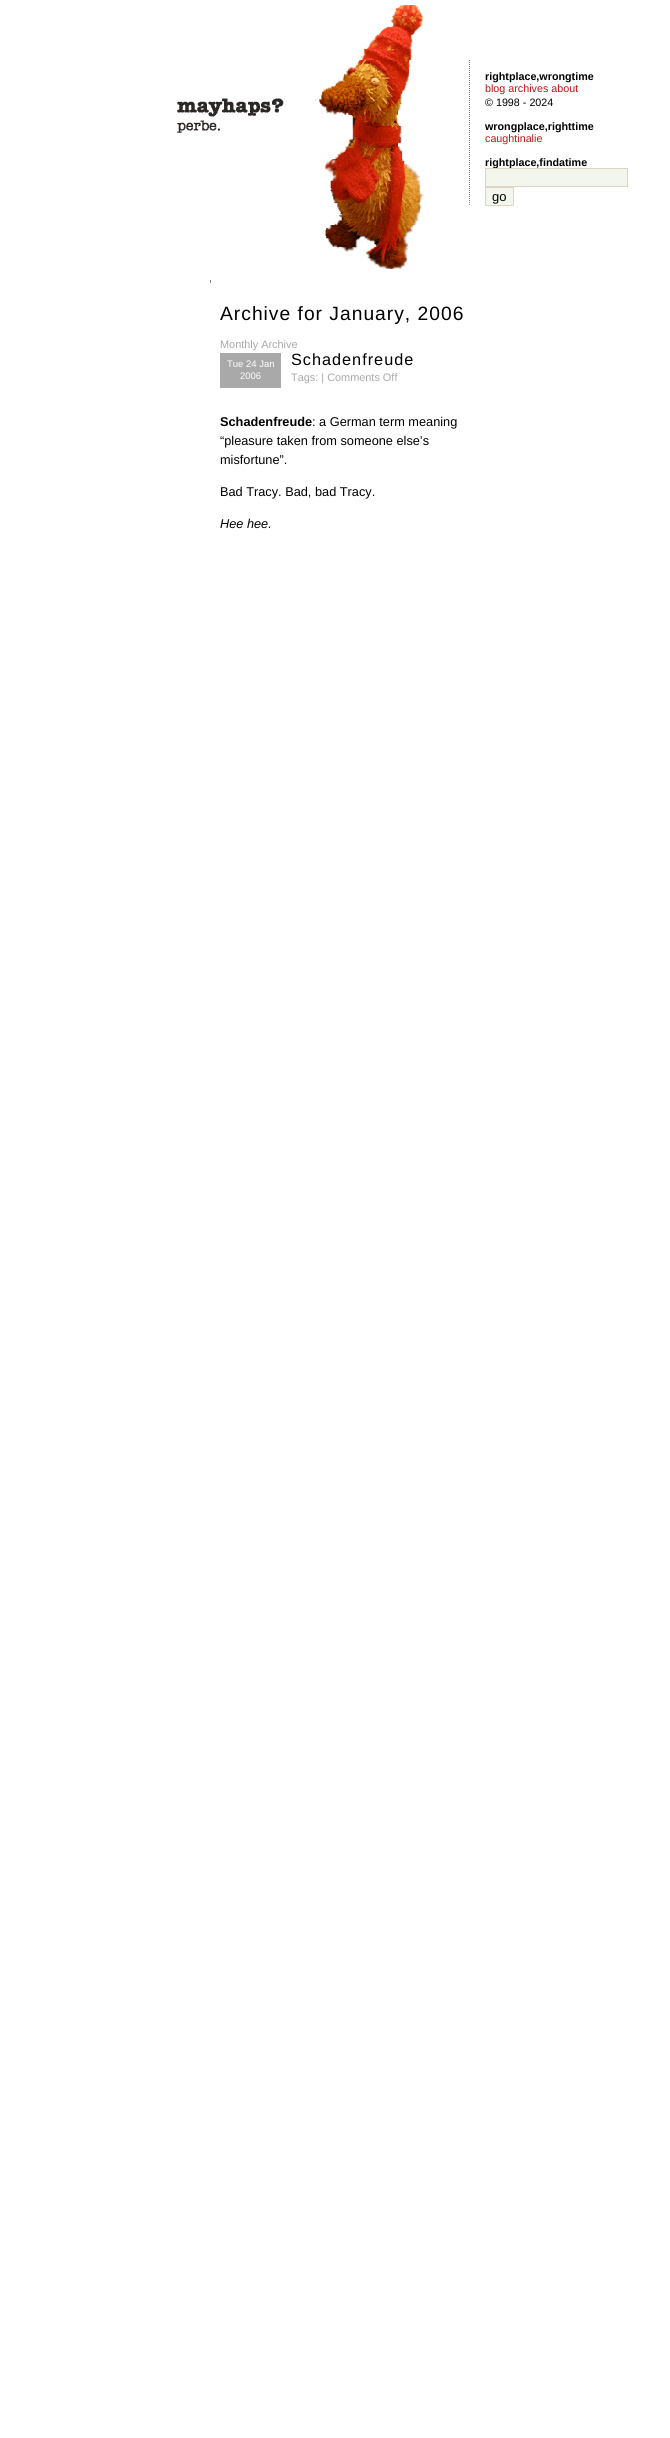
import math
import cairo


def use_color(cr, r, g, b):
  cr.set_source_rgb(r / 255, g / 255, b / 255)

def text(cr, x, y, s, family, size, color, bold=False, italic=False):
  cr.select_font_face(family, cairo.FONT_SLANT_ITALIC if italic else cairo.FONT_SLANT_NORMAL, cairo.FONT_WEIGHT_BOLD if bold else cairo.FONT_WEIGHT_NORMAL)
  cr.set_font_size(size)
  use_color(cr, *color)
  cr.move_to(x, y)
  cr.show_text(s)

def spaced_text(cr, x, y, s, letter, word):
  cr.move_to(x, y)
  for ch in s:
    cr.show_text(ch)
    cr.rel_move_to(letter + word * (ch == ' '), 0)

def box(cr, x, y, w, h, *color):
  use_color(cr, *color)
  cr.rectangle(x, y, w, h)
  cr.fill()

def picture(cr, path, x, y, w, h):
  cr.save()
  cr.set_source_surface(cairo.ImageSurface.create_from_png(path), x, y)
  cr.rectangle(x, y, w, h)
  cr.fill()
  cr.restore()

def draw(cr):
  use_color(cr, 255, 255, 255)
  cr.paint()
  picture(cr, "img_01.png", 177, 5, 247, 264)
  cr.new_path()
  cr.move_to(469.5, 60)
  cr.line_to(469.5, 206)
  use_color(cr, 128, 128, 128)
  cr.set_line_width(1)
  cr.set_dash([1, 1])
  cr.stroke()
  use_color(cr, 243, 246, 237)
  cr.rectangle(485.5, 187.5, 28, 18)
  cr.fill_preserve()
  use_color(cr, 225, 214, 198)
  cr.set_dash([])
  cr.stroke()
  box(cr, 210, 280, 1, 3, 128, 128, 128)
  box(cr, 220, 353, 61, 35, 169, 169, 169)
  text(cr, 485, 80, "rightplace,wrongtime", "Liberation Sans", 10.75, (0, 0, 0), bold=True)
  text(cr, 485, 92, "blog archives about", "Liberation Sans", 10.75, (194, 20, 20))
  text(cr, 485, 106, "© 1998 - 2024", "Liberation Sans", 10.75, (0, 0, 0))
  text(cr, 485, 130, "wrongplace,righttime", "Liberation Sans", 10.75, (0, 0, 0), bold=True)
  text(cr, 485, 142, "caughtinalie", "Liberation Sans", 10.75, (194, 20, 20))
  text(cr, 485, 166, "rightplace,findatime", "Liberation Sans", 10.75, (0, 0, 0), bold=True)
  use_color(cr, 243, 246, 237)
  cr.rectangle(485.5, 168.5, 142, 18)
  cr.fill_preserve()
  use_color(cr, 225, 214, 198)
  cr.stroke()
  text(cr, 492, 201, "go", "Liberation Sans", 13, (0, 0, 0))
  cr.set_font_size(19.25)
  spaced_text(cr, 220, 320, "Archive for January, 2006", 1, 0)
  text(cr, 220, 348, "Monthly Archive", "Liberation Sans", 10.9, (169, 169, 169))
  text(cr, 227, 367, "Tue 24 Jan", "Liberation Sans", 9.5, (255, 255, 255))
  text(cr, 240, 379, "2006", "Liberation Sans", 9.5, (255, 255, 255))
  cr.set_font_size(16.25)
  use_color(cr, 0, 0, 0)
  spaced_text(cr, 291, 365, "Schadenfreude", 1, 0)
  text(cr, 291, 381, "Tags: | Comments Off", "Liberation Sans", 10.9, (169, 169, 169))
  text(cr, 220, 426, "Schadenfreude", "Liberation Sans", 12.75, (0, 0, 0), bold=True)
  text(cr, 312, 426, ": a German term meaning", "Liberation Sans", 12.75, (0, 0, 0))
  text(cr, 220, 445, "“pleasure taken from someone else’s", "Liberation Sans", 12.75, (0, 0, 0))
  text(cr, 220, 464, "misfortune”.", "Liberation Sans", 12.75, (0, 0, 0))
  text(cr, 220, 496, "Bad Tracy. Bad, bad Tracy.", "Liberation Sans", 12.75, (0, 0, 0))
  text(cr, 220, 528, "Hee hee.", "Liberation Sans", 12.75, (0, 0, 0), italic=True)


surface = cairo.ImageSurface(cairo.FORMAT_RGB24, 670, 2438)
cr = cairo.Context(surface)
options = cairo.FontOptions()
options.set_hint_metrics(cairo.HINT_METRICS_OFF)
options.set_hint_style(cairo.HINT_STYLE_NONE)
cr.set_font_options(options)
cr.set_miter_limit(4)
draw(cr)
surface.write_to_png("out.png")
